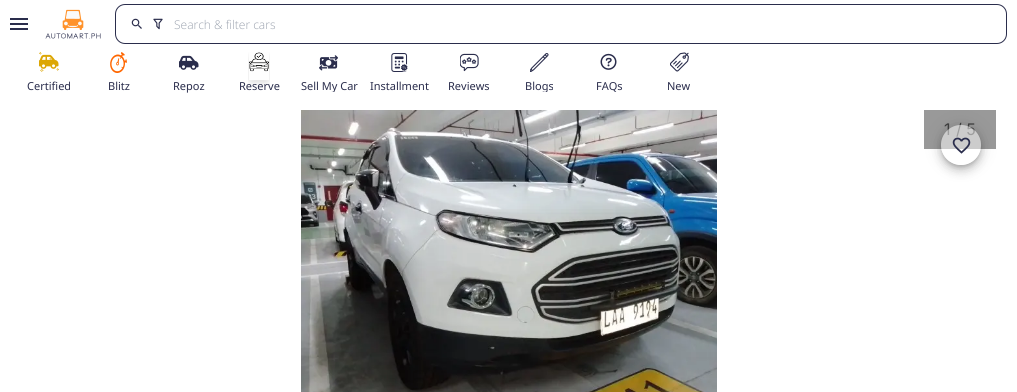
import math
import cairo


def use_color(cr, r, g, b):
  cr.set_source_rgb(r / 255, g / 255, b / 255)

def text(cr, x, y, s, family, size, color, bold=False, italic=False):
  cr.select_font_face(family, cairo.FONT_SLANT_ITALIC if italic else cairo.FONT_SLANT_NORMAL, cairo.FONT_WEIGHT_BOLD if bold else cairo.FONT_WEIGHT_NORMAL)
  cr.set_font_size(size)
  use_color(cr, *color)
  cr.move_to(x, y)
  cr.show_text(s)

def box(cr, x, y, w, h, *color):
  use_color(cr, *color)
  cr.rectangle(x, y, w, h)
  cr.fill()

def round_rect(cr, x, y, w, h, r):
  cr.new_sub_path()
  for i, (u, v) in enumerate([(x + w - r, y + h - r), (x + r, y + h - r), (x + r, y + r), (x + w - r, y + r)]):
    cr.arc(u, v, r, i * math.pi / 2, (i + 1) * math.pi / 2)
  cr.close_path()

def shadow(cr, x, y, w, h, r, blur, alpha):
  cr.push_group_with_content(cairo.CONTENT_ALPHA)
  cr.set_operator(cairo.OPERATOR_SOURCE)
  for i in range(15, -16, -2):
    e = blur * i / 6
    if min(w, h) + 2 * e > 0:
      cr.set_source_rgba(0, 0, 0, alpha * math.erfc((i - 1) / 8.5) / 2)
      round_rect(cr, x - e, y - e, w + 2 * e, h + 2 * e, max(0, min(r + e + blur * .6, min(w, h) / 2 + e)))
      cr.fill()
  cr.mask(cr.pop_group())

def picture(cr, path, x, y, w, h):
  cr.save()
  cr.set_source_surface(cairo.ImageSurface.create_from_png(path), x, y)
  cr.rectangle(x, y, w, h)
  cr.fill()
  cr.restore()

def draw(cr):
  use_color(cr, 255, 255, 255)
  cr.paint()
  picture(cr, "img_01.png", 10, 18, 18, 12)
  picture(cr, "img_02.png", 45, 9, 56, 30)
  round_rect(cr, 115.5, 4.5, 891, 39, 9.5)
  use_color(cr, 42, 45, 76)
  cr.set_line_width(1)
  cr.stroke()
  picture(cr, "img_03.png", 131, 18, 11, 11)
  picture(cr, "img_04.png", 153, 18, 10, 12)
  picture(cr, "img_05.png", 39, 52, 20, 20)
  picture(cr, "img_06.png", 110, 52, 17, 21)
  picture(cr, "img_07.png", 179, 55, 20, 15)
  picture(cr, "img_09.png", 319, 55, 19, 16)
  picture(cr, "img_10.png", 391, 53, 17, 19)
  picture(cr, "img_11.png", 460, 53, 19, 19)
  picture(cr, "img_12.png", 530, 53, 19, 19)
  picture(cr, "img_13.png", 600, 53, 17, 17)
  picture(cr, "img_14.png", 670, 52, 19, 20)
  box(cr, 924, 110, 72, 39, 153, 153, 153)
  cr.save()
  cr.set_fill_rule(cairo.FILL_RULE_EVEN_ODD)
  cr.new_path()
  cr.move_to(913, 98)
  cr.line_to(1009, 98)
  cr.line_to(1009, 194)
  cr.line_to(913, 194)
  cr.close_path()
  cr.move_to(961, 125)
  cr.curve_to(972, 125, 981, 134, 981, 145)
  cr.curve_to(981, 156, 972, 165, 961, 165)
  cr.curve_to(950, 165, 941, 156, 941, 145)
  cr.curve_to(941, 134, 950, 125, 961, 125)
  cr.close_path()
  cr.clip()
  use_color(cr, 0, 0, 0)
  shadow(cr, 941, 126, 40, 40, 20, 9, 0.12)
  cr.restore()
  cr.save()
  cr.set_fill_rule(cairo.FILL_RULE_EVEN_ODD)
  cr.new_path()
  cr.move_to(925, 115)
  cr.line_to(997, 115)
  cr.line_to(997, 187)
  cr.line_to(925, 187)
  cr.close_path()
  cr.move_to(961, 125)
  cr.curve_to(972, 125, 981, 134, 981, 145)
  cr.curve_to(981, 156, 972, 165, 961, 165)
  cr.curve_to(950, 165, 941, 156, 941, 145)
  cr.curve_to(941, 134, 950, 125, 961, 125)
  cr.close_path()
  cr.clip()
  use_color(cr, 0, 0, 0)
  shadow(cr, 941, 131, 40, 40, 20, 5, 0.14)
  cr.restore()
  cr.save()
  cr.set_fill_rule(cairo.FILL_RULE_EVEN_ODD)
  cr.new_path()
  cr.move_to(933, 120)
  cr.line_to(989, 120)
  cr.line_to(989, 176)
  cr.line_to(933, 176)
  cr.close_path()
  cr.move_to(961, 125)
  cr.curve_to(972, 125, 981, 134, 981, 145)
  cr.curve_to(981, 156, 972, 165, 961, 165)
  cr.curve_to(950, 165, 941, 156, 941, 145)
  cr.curve_to(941, 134, 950, 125, 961, 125)
  cr.close_path()
  cr.clip()
  use_color(cr, 0, 0, 0)
  shadow(cr, 942, 129, 38, 38, 19, 2.5, 0.2)
  cr.restore()
  picture(cr, "img_16.png", 301, 110, 416, 282)
  text(cr, 174, 29, "Search & filter cars", "Open Sans Light", 12, (156, 163, 175))
  text(cr, 27, 90, "Certified", "Noto Sans", 11, (42, 45, 76))
  text(cr, 108, 90, "Blitz", "Noto Sans", 11, (42, 45, 76))
  text(cr, 173, 90, "Repoz", "Noto Sans", 11, (42, 45, 76))
  text(cr, 239, 90, "Reserve", "Noto Sans", 11, (42, 45, 76))
  picture(cr, "img_08.png", 248, 52, 22, 34)
  cr.save()
  cr.rectangle(14, 52, 989, 40)
  cr.clip()
  text(cr, 301, 90, "Sell My Car", "Noto Sans", 11, (42, 45, 76))
  cr.restore()
  text(cr, 370, 90, "Installment", "Noto Sans", 11, (42, 45, 76))
  text(cr, 448, 90, "Reviews", "Noto Sans", 11, (42, 45, 76))
  cr.save()
  cr.rectangle(14, 52, 989, 40)
  cr.clip()
  text(cr, 525, 90, "Blogs", "Noto Sans", 11, (42, 45, 76))
  cr.restore()
  text(cr, 596, 90, "FAQs", "Noto Sans", 11, (42, 45, 76))
  text(cr, 667, 90, "New", "Noto Sans", 11, (42, 45, 76))
  text(cr, 944, 135, "1", "Inter", 16, (61, 61, 61))
  text(cr, 956, 135, "/ 5", "Inter", 16, (61, 61, 61))
  cr.set_source_rgba(1, 1, 1, 0.5)
  cr.new_path()
  cr.arc(961, 145, 20, 0, 2 * math.pi)
  cr.fill()
  picture(cr, "img_15.png", 952, 137, 19, 17)


surface = cairo.ImageSurface(cairo.FORMAT_RGB24, 1017, 392)
cr = cairo.Context(surface)
options = cairo.FontOptions()
options.set_hint_metrics(cairo.HINT_METRICS_OFF)
options.set_hint_style(cairo.HINT_STYLE_NONE)
cr.set_font_options(options)
cr.set_miter_limit(4)
draw(cr)
surface.write_to_png("out.png")
